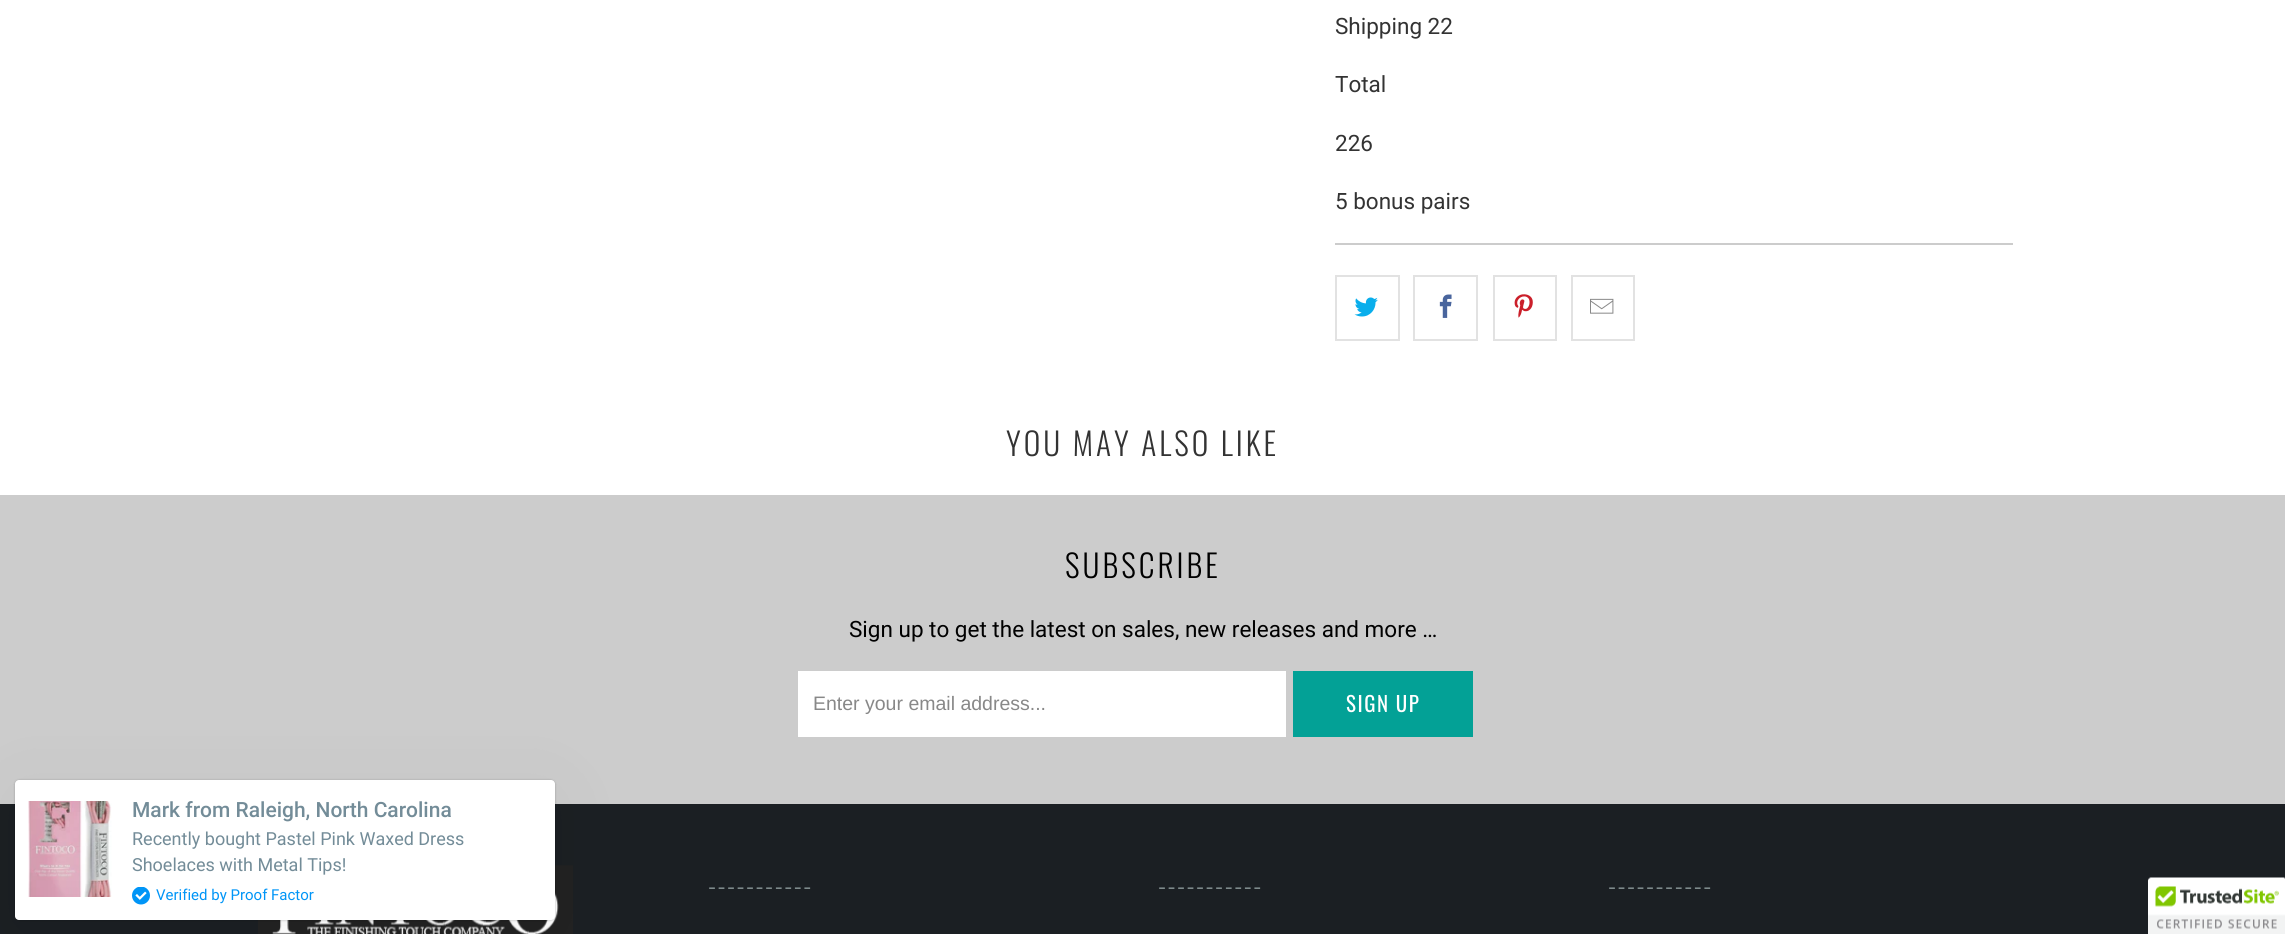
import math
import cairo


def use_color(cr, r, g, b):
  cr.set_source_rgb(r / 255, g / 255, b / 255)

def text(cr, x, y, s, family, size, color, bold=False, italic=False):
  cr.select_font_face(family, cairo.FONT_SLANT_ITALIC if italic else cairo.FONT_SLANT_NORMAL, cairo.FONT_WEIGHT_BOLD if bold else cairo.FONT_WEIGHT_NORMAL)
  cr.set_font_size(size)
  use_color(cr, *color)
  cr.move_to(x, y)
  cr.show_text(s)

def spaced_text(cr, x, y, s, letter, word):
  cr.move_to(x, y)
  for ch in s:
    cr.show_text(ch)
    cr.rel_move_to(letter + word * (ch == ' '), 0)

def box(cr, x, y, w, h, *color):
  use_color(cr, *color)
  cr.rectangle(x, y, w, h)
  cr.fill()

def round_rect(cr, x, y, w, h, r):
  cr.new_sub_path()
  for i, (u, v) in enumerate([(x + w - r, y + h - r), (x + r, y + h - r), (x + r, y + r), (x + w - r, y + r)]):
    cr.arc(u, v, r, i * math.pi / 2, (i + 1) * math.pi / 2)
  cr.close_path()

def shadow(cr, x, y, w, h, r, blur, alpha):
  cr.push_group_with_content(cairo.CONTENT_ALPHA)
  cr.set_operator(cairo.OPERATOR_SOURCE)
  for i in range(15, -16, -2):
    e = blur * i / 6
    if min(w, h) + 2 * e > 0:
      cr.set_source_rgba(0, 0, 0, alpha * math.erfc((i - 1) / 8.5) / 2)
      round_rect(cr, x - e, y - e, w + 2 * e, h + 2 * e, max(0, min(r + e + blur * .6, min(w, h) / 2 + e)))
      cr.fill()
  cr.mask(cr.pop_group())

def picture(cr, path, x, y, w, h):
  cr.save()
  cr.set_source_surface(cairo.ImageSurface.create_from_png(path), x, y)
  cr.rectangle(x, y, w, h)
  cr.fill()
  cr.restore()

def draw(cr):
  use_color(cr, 255, 255, 255)
  cr.paint()
  box(cr, 1335, 243, 678, 2, 204, 204, 204)
  cr.rectangle(1336, 276, 63, 64)
  use_color(cr, 226, 226, 226)
  cr.stroke()
  picture(cr, "img_01.png", 1354, 297, 24, 20)
  cr.rectangle(1414, 276, 63, 64)
  cr.stroke()
  picture(cr, "img_02.png", 1439, 294, 13, 24)
  cr.rectangle(1494, 276, 62, 64)
  cr.stroke()
  picture(cr, "img_03.png", 1514, 294, 19, 24)
  cr.rectangle(1572, 276, 62, 64)
  cr.stroke()
  picture(cr, "img_04.png", 1590, 298, 24, 16)
  box(cr, 0, 495, 2285, 309, 204, 204, 204)
  box(cr, 798, 671, 488, 66, 255, 255, 255)
  box(cr, 1293, 671, 180, 66, 3, 161, 150)
  box(cr, 0, 804, 2285, 130, 27, 31, 35)
  picture(cr, "img_07.png", 258, 865, 315, 69)
  use_color(cr, 0, 0, 0)
  shadow(cr, 15, 792, 540, 140, 4, 37.5, 0.05)
  shadow(cr, 15, 782, 540, 139, 4, 1.5, 0.05)
  shadow(cr, 15, 780, 540, 140, 4, 1, 0.2)
  use_color(cr, 255, 255, 255)
  round_rect(cr, 15, 780, 540, 140, 4)
  cr.fill()
  picture(cr, "img_05.png", 28, 801, 84, 96)
  picture(cr, "img_06.png", 132, 887, 18, 18)
  picture(cr, "img_08.png", 2148, 877, 137, 57)
  text(cr, 1335, 34, "Shipping 22", "Roboto", 22.5, (51, 51, 51))
  text(cr, 1335, 92, "Total", "Roboto", 22.5, (51, 51, 51))
  text(cr, 1335, 151, "226", "Roboto", 22.5, (51, 51, 51))
  text(cr, 1335, 209, "5 bonus pairs", "Roboto", 22.5, (51, 51, 51))
  cr.select_font_face("Oswald Light")
  cr.set_font_size(31.5)
  spaced_text(cr, 1006, 456, "YOU MAY ALSO LIKE", 3, 0)
  use_color(cr, 0, 0, 0)
  spaced_text(cr, 1065, 578, "SUBSCRIBE", 3, 0)
  text(cr, 849, 637, "Sign up to get the latest on sales, new releases and more …", "Roboto", 22.5, (0, 0, 0))
  text(cr, 813, 710, "Enter your email address...", "Liberation Sans", 19.5, (136, 136, 136))
  cr.select_font_face("Oswald")
  cr.set_font_size(21)
  use_color(cr, 255, 255, 255)
  spaced_text(cr, 1346, 712, "SIGN UP", 1.5, 0)
  text(cr, 132, 817, "Mark from Raleigh, North Carolina", "Roboto Medium", 21, (115, 140, 152))
  text(cr, 132, 845, "Recently bought Pastel Pink Waxed Dress", "Roboto", 18, (115, 140, 152))
  text(cr, 132, 871, "Shoelaces with Metal Tips!", "Roboto", 18, (115, 140, 152))
  text(cr, 156, 900, "Verified by Proof Factor", "Roboto", 15, (0, 149, 247))
  cr.select_font_face("Oswald Light")
  cr.set_font_size(27)
  use_color(cr, 127, 140, 141)
  spaced_text(cr, 708, 897, "-----------", 1.5, 0)
  spaced_text(cr, 1158, 897, "-----------", 1.5, 0)
  spaced_text(cr, 1608, 897, "-----------", 1.5, 0)


surface = cairo.ImageSurface(cairo.FORMAT_RGB24, 2285, 934)
cr = cairo.Context(surface)
options = cairo.FontOptions()
options.set_hint_metrics(cairo.HINT_METRICS_OFF)
options.set_hint_style(cairo.HINT_STYLE_NONE)
cr.set_font_options(options)
cr.set_miter_limit(4)
draw(cr)
surface.write_to_png("out.png")
